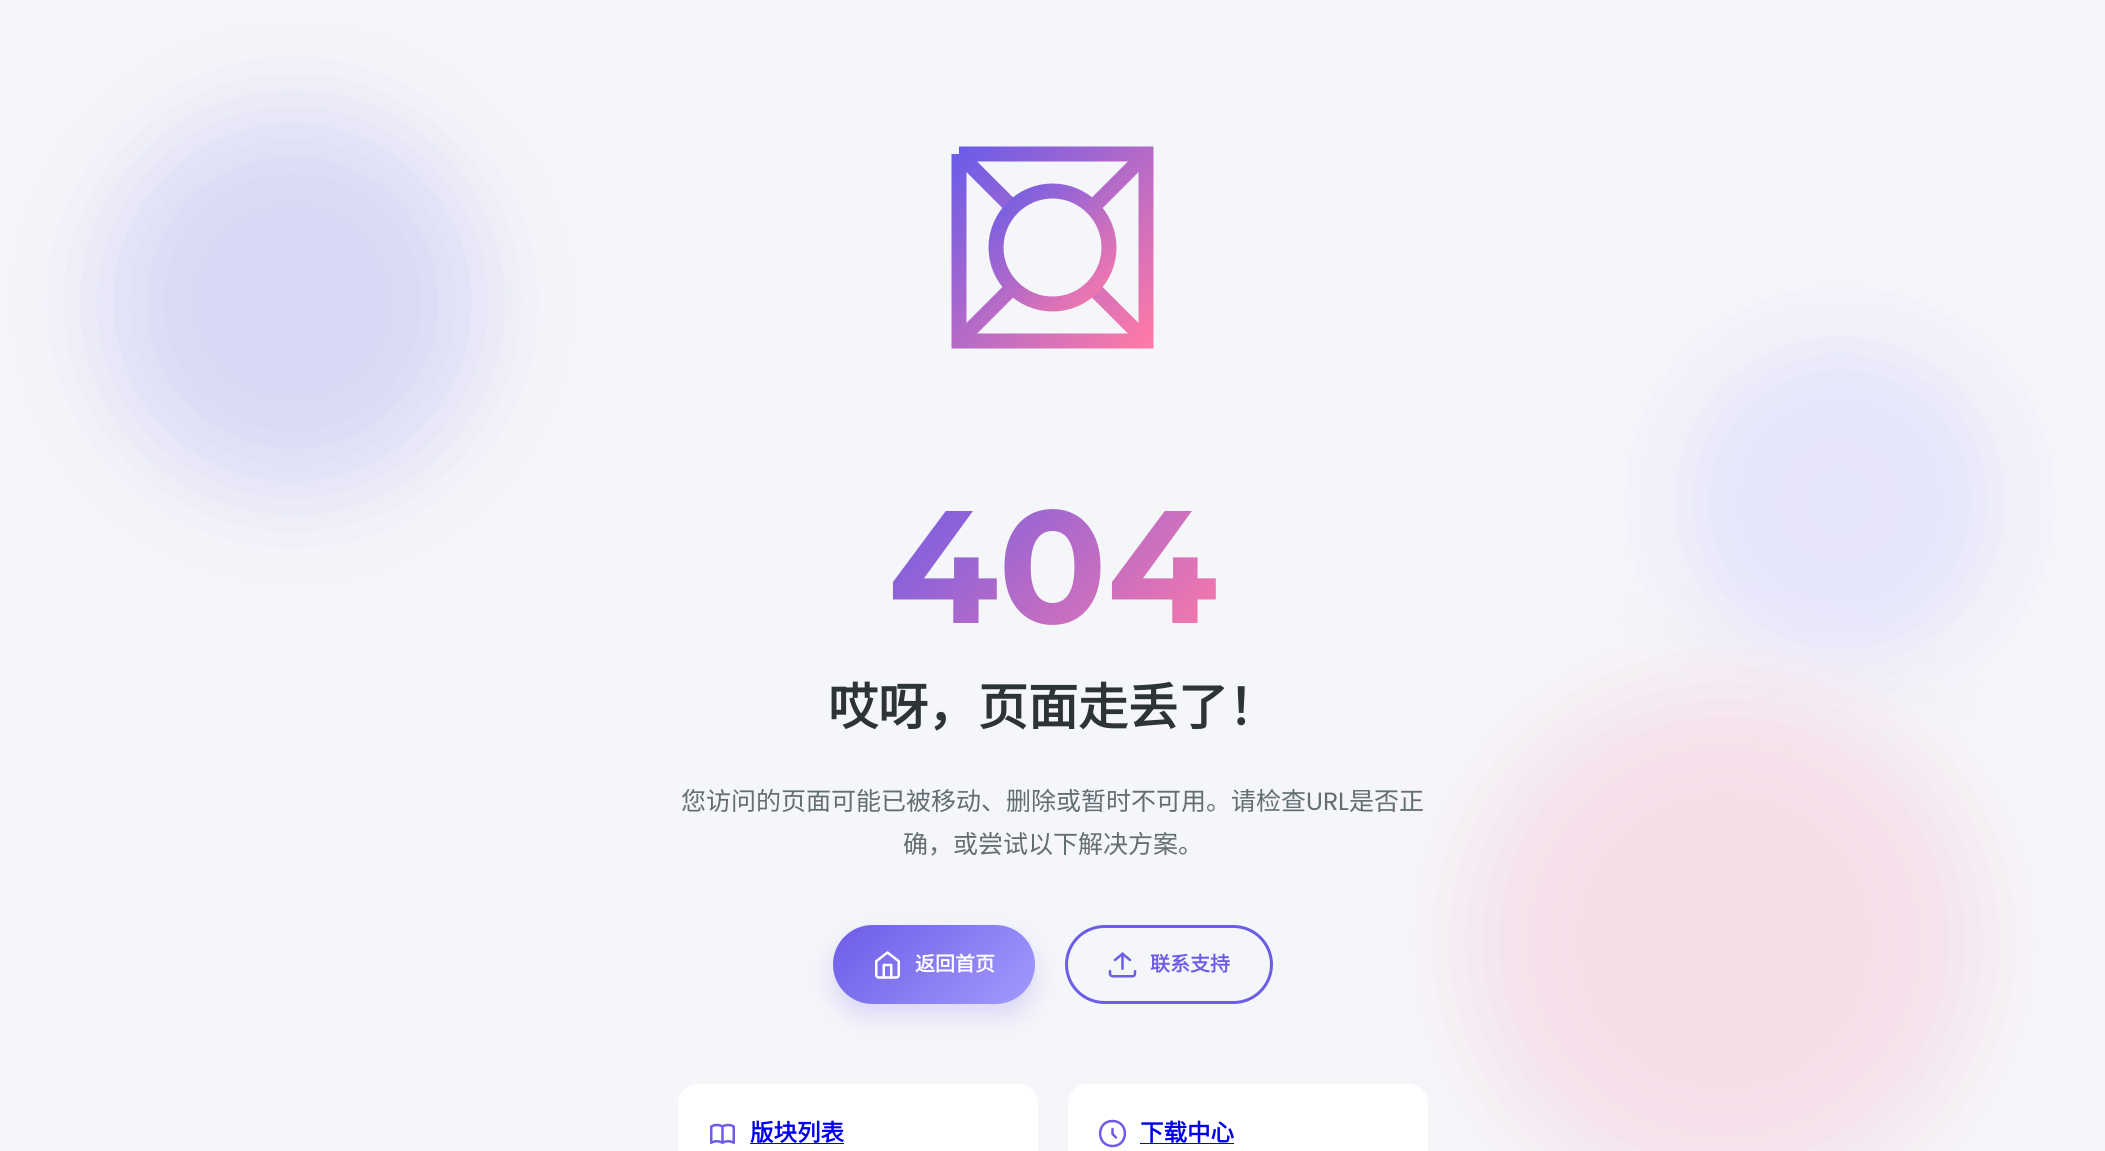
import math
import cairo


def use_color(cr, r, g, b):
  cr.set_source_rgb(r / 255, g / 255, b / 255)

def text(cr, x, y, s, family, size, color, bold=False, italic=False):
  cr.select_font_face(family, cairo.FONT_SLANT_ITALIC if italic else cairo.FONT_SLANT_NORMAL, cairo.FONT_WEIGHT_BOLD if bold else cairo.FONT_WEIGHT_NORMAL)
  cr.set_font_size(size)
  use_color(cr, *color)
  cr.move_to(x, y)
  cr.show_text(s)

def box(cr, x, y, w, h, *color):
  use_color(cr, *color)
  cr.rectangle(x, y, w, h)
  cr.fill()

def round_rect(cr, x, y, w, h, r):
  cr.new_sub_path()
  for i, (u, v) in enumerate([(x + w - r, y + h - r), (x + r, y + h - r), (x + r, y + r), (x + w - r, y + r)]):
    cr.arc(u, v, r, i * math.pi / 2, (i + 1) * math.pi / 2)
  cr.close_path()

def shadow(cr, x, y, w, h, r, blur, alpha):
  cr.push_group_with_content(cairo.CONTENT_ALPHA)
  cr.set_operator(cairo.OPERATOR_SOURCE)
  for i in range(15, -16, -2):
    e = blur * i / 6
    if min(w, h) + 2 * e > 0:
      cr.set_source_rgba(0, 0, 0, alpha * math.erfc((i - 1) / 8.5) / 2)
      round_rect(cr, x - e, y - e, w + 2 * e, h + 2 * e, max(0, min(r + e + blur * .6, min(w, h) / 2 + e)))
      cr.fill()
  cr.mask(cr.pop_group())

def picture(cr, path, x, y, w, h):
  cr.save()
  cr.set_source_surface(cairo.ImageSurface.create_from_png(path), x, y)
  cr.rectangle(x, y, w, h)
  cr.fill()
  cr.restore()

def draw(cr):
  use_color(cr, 245, 246, 250)
  cr.paint()
  use_color(cr, 217, 216, 245)
  shadow(cr, 105, 115, 375, 375, 187.5, 50, 1)
  use_color(cr, 162, 155, 254)
  shadow(cr, 1684, 345, 312, 313, 156, 50, 0.2)
  use_color(cr, 246, 222, 233)
  shadow(cr, 1474, 691, 500, 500, 250, 50, 1)
  cr.new_path()
  cr.move_to(959, 154)
  cr.line_to(1146, 154)
  cr.line_to(1146, 341)
  cr.line_to(959, 341)
  cr.line_to(959, 154)
  gradient = cairo.LinearGradient(959, 154, 1146, 341)
  gradient.add_color_stop_rgba(0, 0.424, 0.361, 0.906, 1)
  gradient.add_color_stop_rgba(1, 0.992, 0.475, 0.659, 1)
  cr.set_source(gradient)
  cr.set_line_width(15)
  cr.stroke()
  cr.new_path()
  cr.move_to(959, 154)
  cr.line_to(1146, 341)
  cr.move_to(959, 341)
  cr.line_to(1146, 154)
  cr.set_dash([375, 375])
  cr.stroke()
  use_color(cr, 245, 246, 250)
  cr.arc(1052.5, 247.5, 56, 0, 2 * math.pi)
  cr.fill()
  cr.new_path()
  cr.move_to(1052.5, 191)
  cr.curve_to(1083.5, 191, 1109, 216.5, 1109, 247.5)
  cr.curve_to(1109, 278.5, 1083.5, 304, 1052.5, 304)
  cr.curve_to(1021.5, 304, 996, 278.5, 996, 247.5)
  cr.curve_to(996, 216.5, 1021.5, 191, 1052.5, 191)
  gradient = cairo.LinearGradient(996, 191, 1109, 304)
  gradient.add_color_stop_rgba(0, 0.424, 0.361, 0.906, 1)
  gradient.add_color_stop_rgba(1, 0.992, 0.475, 0.659, 1)
  cr.set_source(gradient)
  cr.set_dash([])
  cr.stroke()
  use_color(cr, 108, 92, 231)
  shadow(cr, 833, 938, 202, 78, 39, 12.5, 0.2)
  gradient = cairo.LinearGradient(863, 894, 1004, 1035)
  gradient.add_color_stop_rgba(0, 0.424, 0.361, 0.906, 1)
  gradient.add_color_stop_rgba(1, 0.635, 0.608, 0.996, 1)
  cr.set_source(gradient)
  round_rect(cr, 833, 925, 202, 79, 39.5)
  cr.fill()
  picture(cr, "img_01.png", 875, 951, 25, 28)
  round_rect(cr, 1066.5, 926.5, 205, 76, 38)
  use_color(cr, 108, 92, 231)
  cr.set_line_width(3)
  cr.stroke()
  picture(cr, "img_02.png", 1108, 952, 29, 26)
  use_color(cr, 255, 255, 255)
  round_rect(cr, 678, 1084, 360, 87, 20)
  cr.fill()
  picture(cr, "img_03.png", 710, 1123, 25, 21)
  box(cr, 750, 1143, 94, 1, 0, 0, 238)
  use_color(cr, 255, 255, 255)
  round_rect(cr, 1068, 1084, 360, 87, 20)
  cr.fill()
  cr.new_path()
  cr.move_to(1112.5, 1146)
  cr.curve_to(1129, 1146, 1129, 1121, 1112.5, 1121)
  cr.curve_to(1096, 1121, 1096, 1146, 1112.5, 1146)
  cr.close_path()
  cr.move_to(1112.5, 1129)
  cr.line_to(1112.5, 1134)
  cr.line_to(1116, 1137.5)
  use_color(cr, 108, 92, 231)
  cr.set_line_width(2.5)
  cr.set_line_cap(cairo.LINE_CAP_ROUND)
  cr.set_line_join(cairo.LINE_JOIN_ROUND)
  cr.stroke()
  box(cr, 1140, 1143, 94, 1, 0, 0, 238)
  cr.select_font_face("Montserrat", cairo.FONT_SLANT_NORMAL, cairo.FONT_WEIGHT_BOLD)
  cr.set_font_size(160)
  gradient = cairo.LinearGradient(930, 443, 1175, 687)
  gradient.add_color_stop_rgba(0, 0.424, 0.361, 0.906, 1)
  gradient.add_color_stop_rgba(1, 0.992, 0.475, 0.659, 1)
  cr.set_source(gradient)
  cr.move_to(888, 623)
  cr.show_text("404")
  text(cr, 828, 725, "哎呀，页面走丢了！", "Noto Sans CJK SC", 50, (45, 52, 54), bold=True)
  text(cr, 681, 810, "您访问的页面可能已被移动、删除或暂时不可用。请检查", "Noto Sans CJK SC", 25, (99, 110, 114))
  text(cr, 1306, 810, "URL", "Poppins", 25, (99, 110, 114))
  text(cr, 1349, 810, "是否正", "Noto Sans CJK SC", 25, (99, 110, 114))
  text(cr, 903, 853, "确，或尝试以下解决方案。", "Noto Sans CJK SC", 25, (99, 110, 114))
  text(cr, 915, 971, "返回首页", "Noto Sans CJK SC", 20, (255, 255, 255), bold=True)
  text(cr, 1150, 971, "联系支持", "Noto Sans CJK SC", 20, (108, 92, 231), bold=True)
  text(cr, 750, 1141, "版块列表", "Noto Sans CJK SC", 23.5, (0, 0, 238), bold=True)
  text(cr, 1140, 1141, "下载中心", "Noto Sans CJK SC", 23.5, (0, 0, 238), bold=True)


surface = cairo.ImageSurface(cairo.FORMAT_RGB24, 2105, 1151)
cr = cairo.Context(surface)
options = cairo.FontOptions()
options.set_hint_metrics(cairo.HINT_METRICS_OFF)
options.set_hint_style(cairo.HINT_STYLE_NONE)
cr.set_font_options(options)
cr.set_miter_limit(4)
draw(cr)
surface.write_to_png("out.png")
